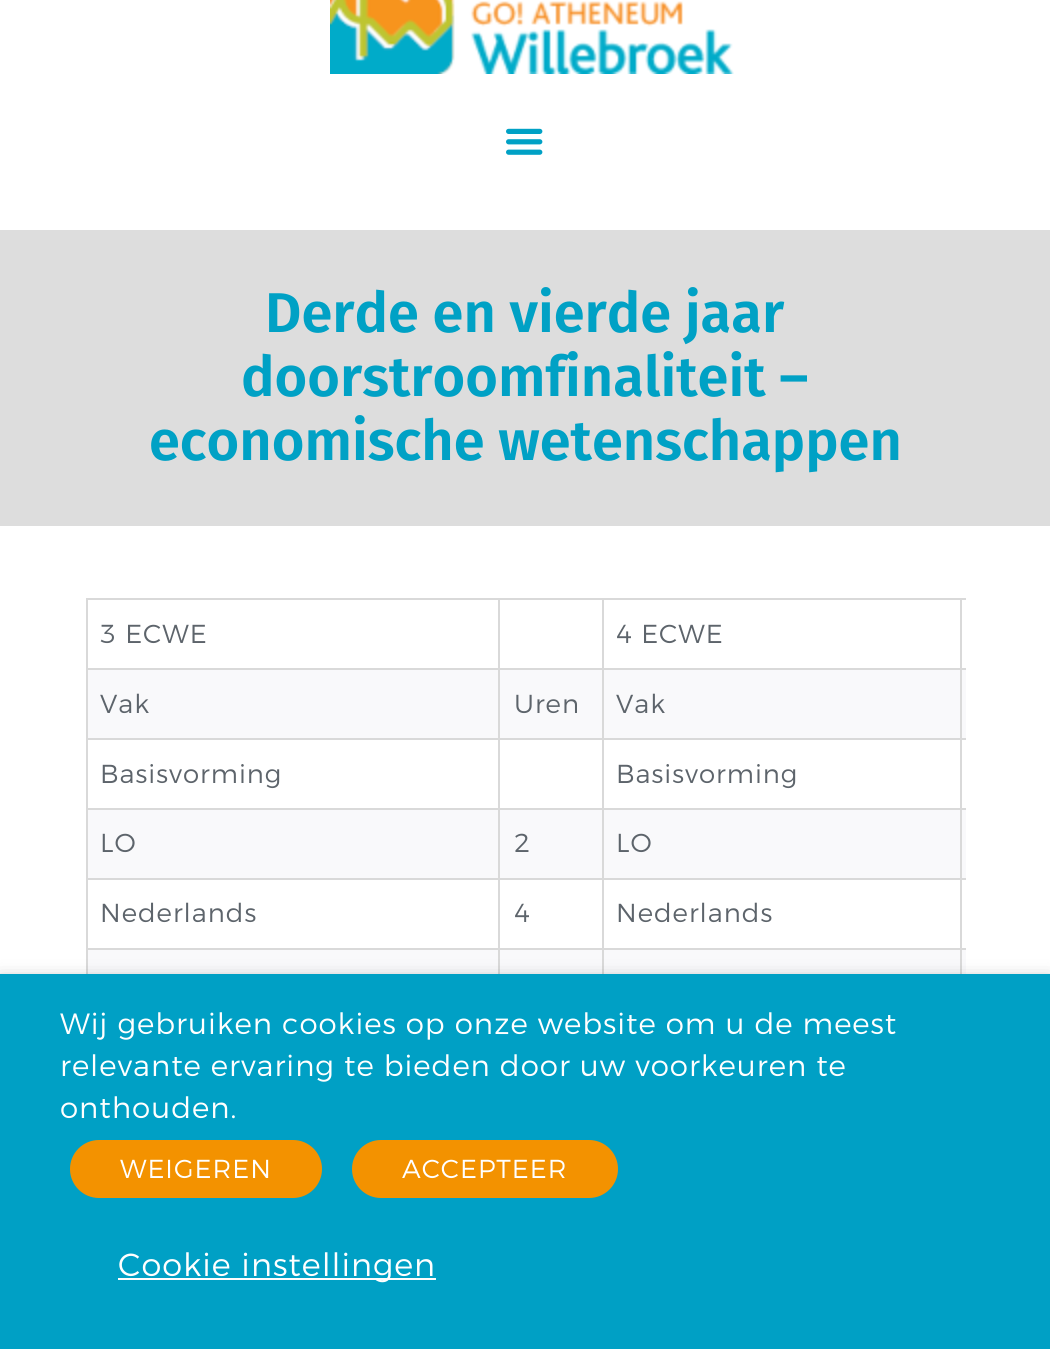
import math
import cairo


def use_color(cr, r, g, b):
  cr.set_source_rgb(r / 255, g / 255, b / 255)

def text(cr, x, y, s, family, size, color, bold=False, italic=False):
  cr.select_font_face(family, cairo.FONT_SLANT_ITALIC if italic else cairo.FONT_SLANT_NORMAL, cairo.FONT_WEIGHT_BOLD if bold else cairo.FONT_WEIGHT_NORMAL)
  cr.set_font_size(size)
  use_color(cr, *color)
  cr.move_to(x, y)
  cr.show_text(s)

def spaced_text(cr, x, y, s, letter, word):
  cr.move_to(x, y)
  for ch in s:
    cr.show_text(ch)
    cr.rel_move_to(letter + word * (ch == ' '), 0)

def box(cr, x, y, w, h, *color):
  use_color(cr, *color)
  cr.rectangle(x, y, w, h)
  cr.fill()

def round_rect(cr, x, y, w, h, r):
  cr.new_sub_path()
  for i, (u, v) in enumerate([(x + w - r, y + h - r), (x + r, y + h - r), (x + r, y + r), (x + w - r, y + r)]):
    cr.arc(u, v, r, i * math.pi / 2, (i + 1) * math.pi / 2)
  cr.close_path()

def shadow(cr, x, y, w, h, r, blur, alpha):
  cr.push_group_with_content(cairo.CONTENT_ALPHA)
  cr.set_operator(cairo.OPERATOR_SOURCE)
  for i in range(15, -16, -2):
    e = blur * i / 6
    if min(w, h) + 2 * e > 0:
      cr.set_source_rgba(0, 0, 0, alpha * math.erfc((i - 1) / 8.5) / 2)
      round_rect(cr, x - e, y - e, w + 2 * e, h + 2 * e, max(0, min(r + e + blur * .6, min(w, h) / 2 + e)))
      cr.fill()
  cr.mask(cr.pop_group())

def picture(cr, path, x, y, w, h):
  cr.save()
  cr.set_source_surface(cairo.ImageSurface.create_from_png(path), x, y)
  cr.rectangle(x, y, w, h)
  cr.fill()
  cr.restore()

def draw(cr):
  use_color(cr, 255, 255, 255)
  cr.paint()
  picture(cr, "img_01.png", 330, 0, 404, 74)
  picture(cr, "img_02.png", 506, 128, 37, 27)
  box(cr, 0, 230, 1050, 296, 221, 221, 221)
  box(cr, 86, 598, 880, 2, 217, 217, 217)
  box(cr, 86, 598, 2, 376, 217, 217, 217)
  box(cr, 962, 668, 4, 70, 249, 249, 251)
  box(cr, 960, 668, 6, 2, 217, 217, 217)
  box(cr, 960, 738, 6, 2, 217, 217, 217)
  box(cr, 962, 808, 4, 70, 249, 249, 251)
  box(cr, 960, 808, 6, 2, 217, 217, 217)
  box(cr, 960, 878, 6, 2, 217, 217, 217)
  box(cr, 962, 948, 4, 26, 249, 249, 251)
  box(cr, 960, 948, 6, 2, 217, 217, 217)
  box(cr, 960, 948, 2, 26, 217, 217, 217)
  box(cr, 602, 948, 360, 2, 217, 217, 217)
  box(cr, 960, 878, 2, 72, 217, 217, 217)
  box(cr, 602, 878, 360, 2, 217, 217, 217)
  box(cr, 960, 808, 2, 72, 217, 217, 217)
  box(cr, 602, 808, 360, 2, 217, 217, 217)
  box(cr, 960, 738, 2, 72, 217, 217, 217)
  box(cr, 602, 738, 360, 2, 217, 217, 217)
  box(cr, 960, 668, 2, 72, 217, 217, 217)
  box(cr, 602, 668, 360, 2, 217, 217, 217)
  box(cr, 602, 948, 2, 26, 217, 217, 217)
  box(cr, 498, 948, 106, 2, 217, 217, 217)
  box(cr, 602, 878, 2, 72, 217, 217, 217)
  box(cr, 498, 878, 106, 2, 217, 217, 217)
  box(cr, 602, 808, 2, 72, 217, 217, 217)
  box(cr, 498, 808, 106, 2, 217, 217, 217)
  box(cr, 602, 738, 2, 72, 217, 217, 217)
  box(cr, 498, 738, 106, 2, 217, 217, 217)
  box(cr, 602, 668, 2, 72, 217, 217, 217)
  box(cr, 498, 668, 106, 2, 217, 217, 217)
  box(cr, 498, 948, 2, 26, 217, 217, 217)
  box(cr, 86, 948, 414, 2, 217, 217, 217)
  box(cr, 498, 878, 2, 72, 217, 217, 217)
  box(cr, 86, 878, 414, 2, 217, 217, 217)
  box(cr, 498, 808, 2, 72, 217, 217, 217)
  box(cr, 86, 808, 414, 2, 217, 217, 217)
  box(cr, 498, 738, 2, 72, 217, 217, 217)
  box(cr, 86, 738, 414, 2, 217, 217, 217)
  box(cr, 498, 668, 2, 72, 217, 217, 217)
  box(cr, 86, 668, 414, 2, 217, 217, 217)
  box(cr, 498, 598, 2, 72, 217, 217, 217)
  box(cr, 602, 598, 2, 72, 217, 217, 217)
  box(cr, 960, 598, 2, 72, 217, 217, 217)
  box(cr, 88, 670, 410, 68, 249, 249, 251)
  box(cr, 500, 670, 102, 68, 249, 249, 251)
  box(cr, 604, 670, 356, 68, 249, 249, 251)
  box(cr, 88, 810, 410, 68, 249, 249, 251)
  box(cr, 500, 810, 102, 68, 249, 249, 251)
  box(cr, 604, 810, 356, 68, 249, 249, 251)
  box(cr, 88, 950, 410, 24, 249, 249, 251)
  box(cr, 500, 950, 102, 24, 249, 249, 251)
  box(cr, 604, 950, 356, 24, 249, 249, 251)
  use_color(cr, 0, 0, 0)
  shadow(cr, 0, 984, 1050, 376, 0, 10, 0.5)
  box(cr, 0, 974, 1050, 375, 0, 160, 197)
  use_color(cr, 243, 146, 0)
  round_rect(cr, 70, 1140, 252, 58, 29)
  cr.fill()
  round_rect(cr, 352, 1140, 266, 58, 29)
  cr.fill()
  box(cr, 118, 1278, 318, 2, 255, 252, 252)
  text(cr, 265, 332, "Derde en vierde jaar", "Fira Sans SemiBold", 56, (0, 161, 197))
  text(cr, 241, 396, "doorstroomfinaliteit –", "Fira Sans SemiBold", 56, (0, 161, 197))
  text(cr, 149, 460, "economische wetenschappen", "Fira Sans SemiBold", 56, (0, 161, 197))
  cr.select_font_face("Montserrat Light")
  cr.set_font_size(26)
  use_color(cr, 93, 100, 107)
  spaced_text(cr, 100, 643, "3 ECWE", 1, 0)
  spaced_text(cr, 616, 643, "4 ECWE", 1, 0)
  spaced_text(cr, 100, 713, "Vak", 1, 0)
  spaced_text(cr, 514, 713, "Uren", 1, 0)
  spaced_text(cr, 616, 713, "Vak", 1, 0)
  spaced_text(cr, 100, 783, "Basisvorming", 1, 0)
  spaced_text(cr, 616, 783, "Basisvorming", 1, 0)
  spaced_text(cr, 100, 852, "LO", 1, 0)
  spaced_text(cr, 514, 852, "2", 1, 0)
  spaced_text(cr, 616, 852, "LO", 1, 0)
  spaced_text(cr, 100, 922, "Nederlands", 1, 0)
  spaced_text(cr, 514, 922, "4", 1, 0)
  spaced_text(cr, 616, 922, "Nederlands", 1, 0)
  cr.set_font_size(29.3)
  use_color(cr, 255, 255, 255)
  spaced_text(cr, 60, 1034, "Wij gebruiken cookies op onze website om u de meest", 1, 0)
  spaced_text(cr, 60, 1076, "relevante ervaring te bieden door uw voorkeuren te", 1, 0)
  spaced_text(cr, 60, 1118, "onthouden.", 1, 0)
  cr.set_font_size(26)
  spaced_text(cr, 120, 1178, "WEIGEREN", 1, 0)
  spaced_text(cr, 402, 1178, "ACCEPTEER", 1, 0)
  cr.set_font_size(32)
  spaced_text(cr, 118, 1276, "Cookie instellingen", 1, 0)


surface = cairo.ImageSurface(cairo.FORMAT_RGB24, 1050, 1349)
cr = cairo.Context(surface)
options = cairo.FontOptions()
options.set_hint_metrics(cairo.HINT_METRICS_OFF)
options.set_hint_style(cairo.HINT_STYLE_NONE)
cr.set_font_options(options)
cr.set_miter_limit(4)
draw(cr)
surface.write_to_png("out.png")
